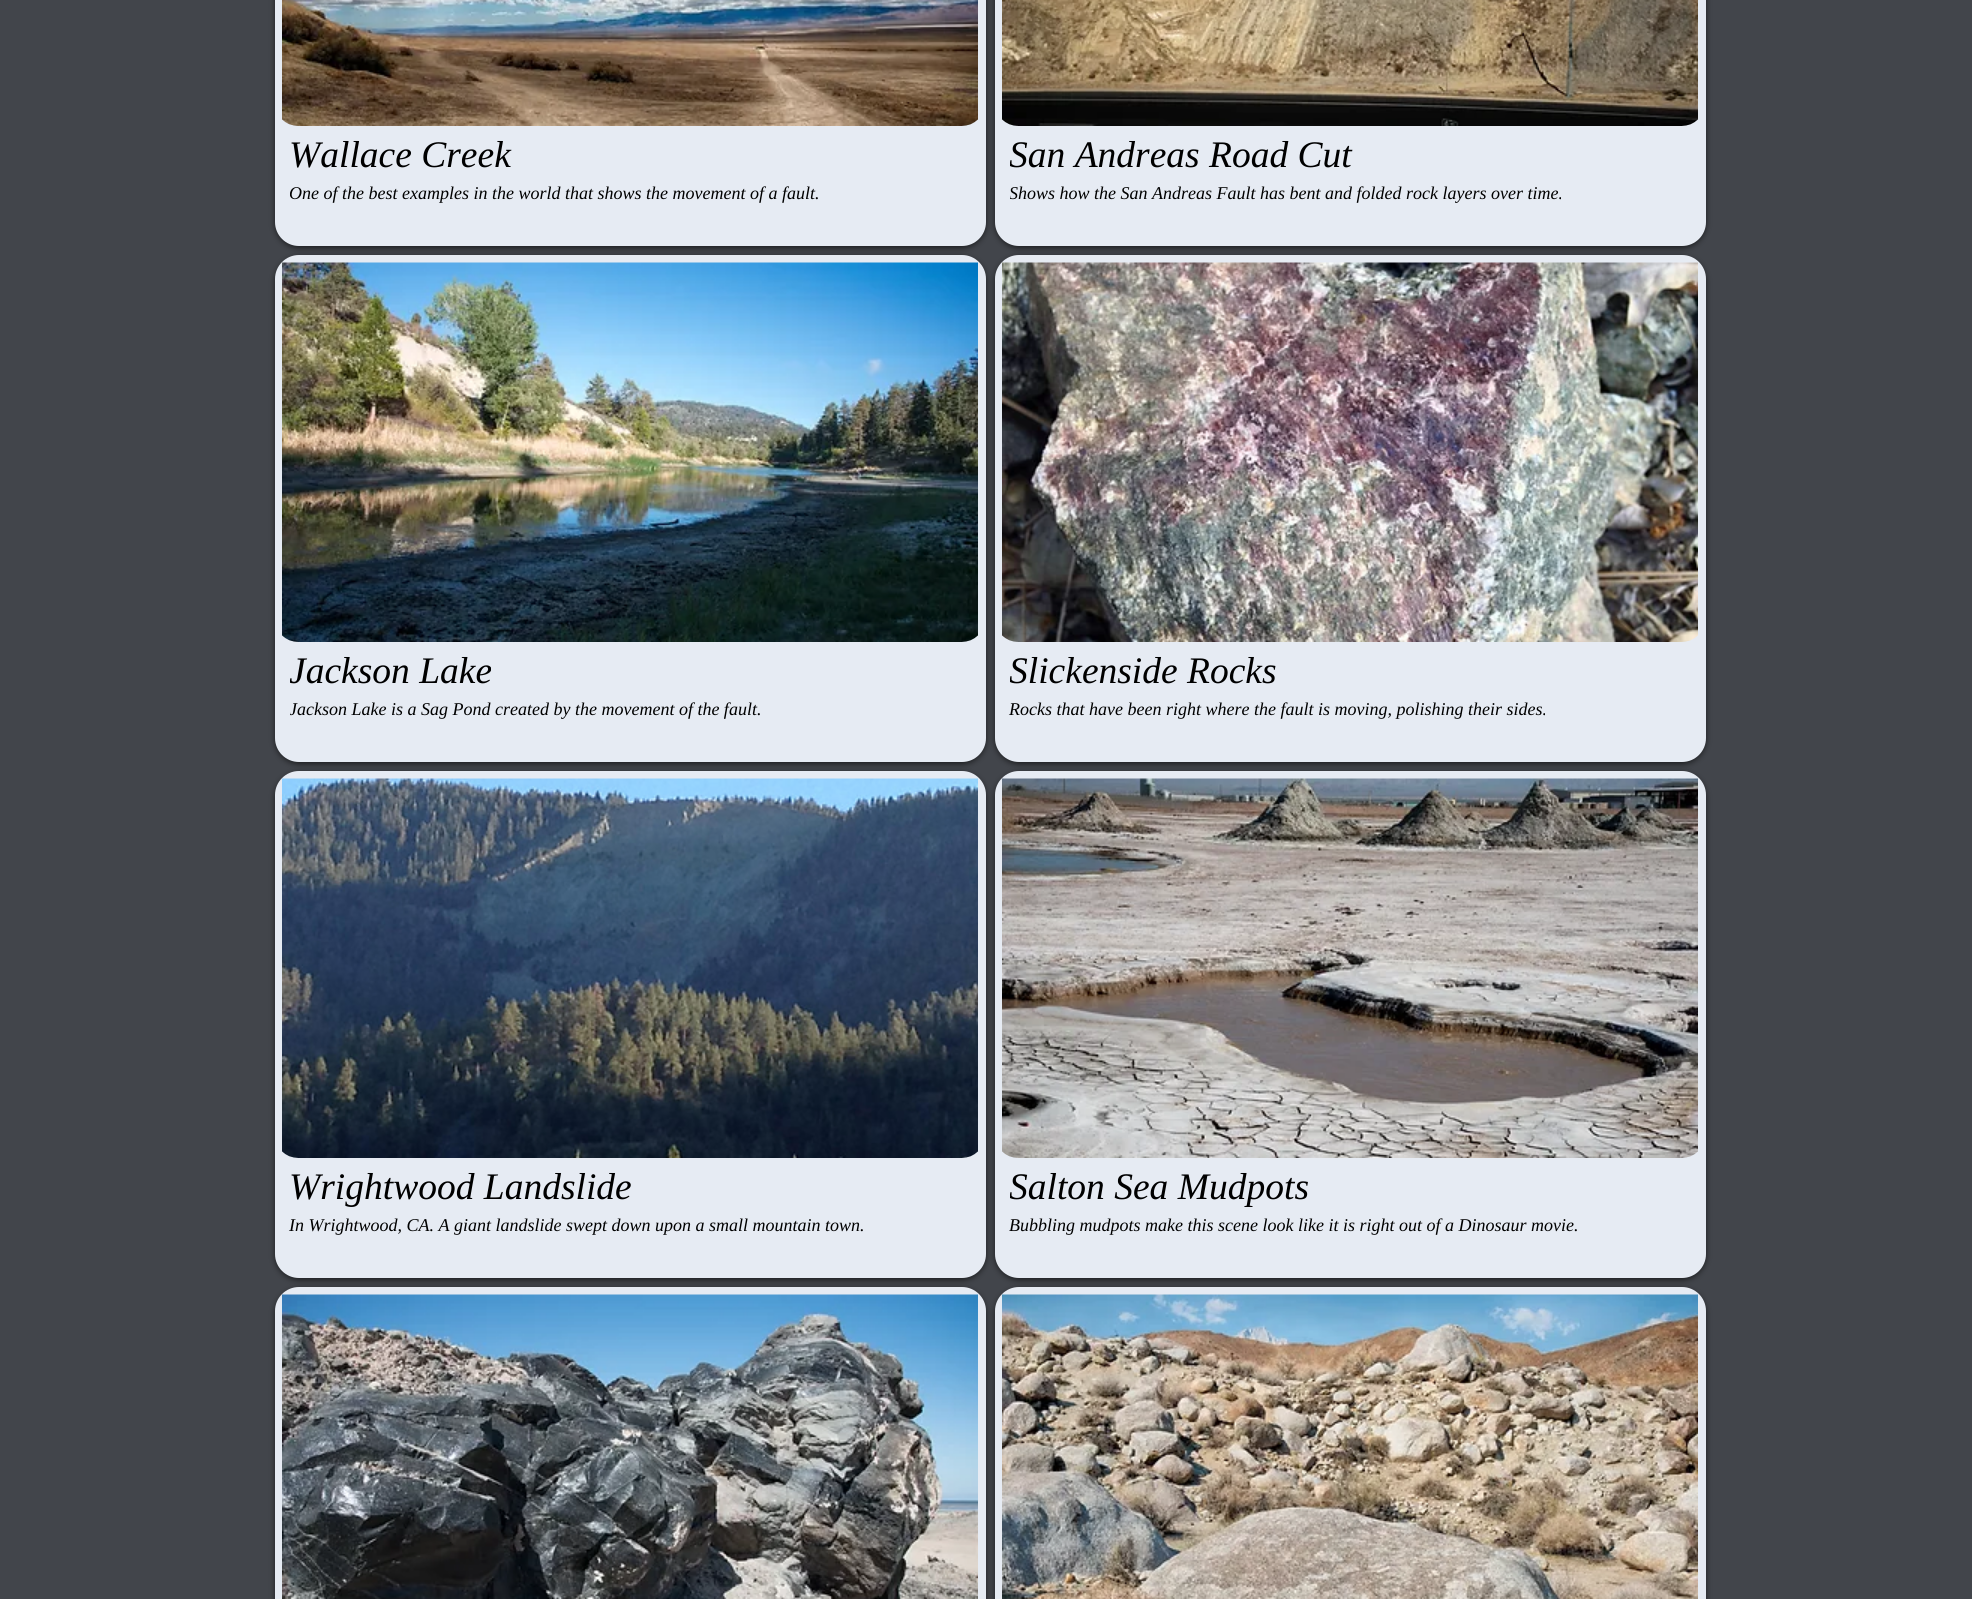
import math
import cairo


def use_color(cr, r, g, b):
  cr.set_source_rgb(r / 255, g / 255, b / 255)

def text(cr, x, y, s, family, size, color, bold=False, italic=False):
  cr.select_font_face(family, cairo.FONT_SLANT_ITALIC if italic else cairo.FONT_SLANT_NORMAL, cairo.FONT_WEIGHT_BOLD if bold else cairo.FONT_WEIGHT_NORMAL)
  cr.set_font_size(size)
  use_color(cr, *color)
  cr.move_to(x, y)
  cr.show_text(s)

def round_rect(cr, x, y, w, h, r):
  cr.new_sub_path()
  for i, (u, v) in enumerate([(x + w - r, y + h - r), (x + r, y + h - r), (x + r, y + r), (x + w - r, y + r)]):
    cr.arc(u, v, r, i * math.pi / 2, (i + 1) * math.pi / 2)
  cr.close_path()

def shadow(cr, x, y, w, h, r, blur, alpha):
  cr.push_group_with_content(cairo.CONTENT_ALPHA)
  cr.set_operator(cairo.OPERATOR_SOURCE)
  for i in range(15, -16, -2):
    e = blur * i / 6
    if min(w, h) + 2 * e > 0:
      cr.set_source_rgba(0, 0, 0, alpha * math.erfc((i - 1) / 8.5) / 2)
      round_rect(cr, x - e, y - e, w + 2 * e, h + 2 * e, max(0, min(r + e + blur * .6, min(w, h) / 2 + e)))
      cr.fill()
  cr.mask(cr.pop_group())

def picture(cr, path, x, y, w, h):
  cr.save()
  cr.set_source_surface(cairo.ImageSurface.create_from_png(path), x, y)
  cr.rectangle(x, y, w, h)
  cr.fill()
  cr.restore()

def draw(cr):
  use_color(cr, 66, 69, 75)
  cr.paint()
  use_color(cr, 0, 0, 0)
  shadow(cr, 275, -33, 711, 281, 24, 3, 0.6)
  use_color(cr, 230, 235, 243)
  round_rect(cr, 275, -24, 711, 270, 24)
  cr.fill()
  picture(cr, "img_01.png", 282, 0, 696, 126)
  use_color(cr, 0, 0, 0)
  shadow(cr, 995, -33, 711, 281, 24, 3, 0.6)
  use_color(cr, 230, 235, 243)
  round_rect(cr, 995, -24, 711, 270, 24)
  cr.fill()
  picture(cr, "img_02.png", 1002, 0, 696, 126)
  use_color(cr, 0, 0, 0)
  shadow(cr, 275, 257, 711, 507, 24, 3, 0.6)
  use_color(cr, 230, 235, 243)
  round_rect(cr, 275, 255, 711, 507, 24)
  cr.fill()
  picture(cr, "img_03.png", 282, 262, 696, 380)
  use_color(cr, 0, 0, 0)
  shadow(cr, 995, 257, 711, 507, 24, 3, 0.6)
  use_color(cr, 230, 235, 243)
  round_rect(cr, 995, 255, 711, 507, 24)
  cr.fill()
  picture(cr, "img_04.png", 1002, 262, 696, 380)
  use_color(cr, 0, 0, 0)
  shadow(cr, 275, 773, 711, 507, 24, 3, 0.6)
  use_color(cr, 230, 235, 243)
  round_rect(cr, 275, 771, 711, 507, 24)
  cr.fill()
  picture(cr, "img_05.png", 282, 778, 696, 380)
  use_color(cr, 0, 0, 0)
  shadow(cr, 995, 773, 711, 507, 24, 3, 0.6)
  use_color(cr, 230, 235, 243)
  round_rect(cr, 995, 771, 711, 507, 24)
  cr.fill()
  picture(cr, "img_06.png", 1002, 778, 696, 380)
  use_color(cr, 0, 0, 0)
  shadow(cr, 275, 1289, 711, 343, 24, 3, 0.6)
  use_color(cr, 230, 235, 243)
  round_rect(cr, 275, 1287, 711, 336, 24)
  cr.fill()
  picture(cr, "img_07.png", 282, 1294, 696, 305)
  use_color(cr, 0, 0, 0)
  shadow(cr, 995, 1289, 711, 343, 24, 3, 0.6)
  use_color(cr, 230, 235, 243)
  round_rect(cr, 995, 1287, 711, 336, 24)
  cr.fill()
  picture(cr, "img_08.png", 1002, 1294, 696, 305)
  text(cr, 289, 167, "Wallace Creek", "Liberation Serif", 37.5, (0, 0, 0), italic=True)
  cr.save()
  cr.rectangle(290, 183, 681, 21)
  cr.clip()
  text(cr, 289, 199, "One of the best examples in the world that shows the movement of a fault.", "Liberation Serif", 18, (0, 0, 0), italic=True)
  cr.restore()
  cr.save()
  cr.rectangle(1010, 132, 681, 48)
  cr.clip()
  text(cr, 1009, 167, "San Andreas Road Cut", "Liberation Serif", 37.5, (0, 0, 0), italic=True)
  cr.restore()
  cr.save()
  cr.rectangle(1010, 183, 681, 21)
  cr.clip()
  text(cr, 1009, 199, "Shows how the San Andreas Fault has bent and folded rock layers over time.", "Liberation Serif", 18, (0, 0, 0), italic=True)
  cr.restore()
  cr.save()
  cr.rectangle(290, 648, 681, 48)
  cr.clip()
  text(cr, 289, 683, "Jackson Lake", "Liberation Serif", 37.5, (0, 0, 0), italic=True)
  cr.restore()
  cr.save()
  cr.rectangle(290, 699, 681, 21)
  cr.clip()
  text(cr, 289, 715, "Jackson Lake is a Sag Pond created by the movement of the fault.", "Liberation Serif", 18, (0, 0, 0), italic=True)
  cr.restore()
  cr.save()
  cr.rectangle(1010, 648, 681, 48)
  cr.clip()
  text(cr, 1009, 683, "Slickenside Rocks", "Liberation Serif", 37.5, (0, 0, 0), italic=True)
  cr.restore()
  text(cr, 1009, 715, "Rocks that have been right where the fault is moving, polishing their sides.", "Liberation Serif", 18, (0, 0, 0), italic=True)
  text(cr, 289, 1199, "Wrightwood Landslide", "Liberation Serif", 37.5, (0, 0, 0), italic=True)
  text(cr, 289, 1231, "In Wrightwood, CA. A giant landslide swept down upon a small mountain town.", "Liberation Serif", 18, (0, 0, 0), italic=True)
  cr.save()
  cr.rectangle(1010, 1164, 681, 48)
  cr.clip()
  text(cr, 1009, 1199, "Salton Sea Mudpots", "Liberation Serif", 37.5, (0, 0, 0), italic=True)
  cr.restore()
  text(cr, 1009, 1231, "Bubbling mudpots make this scene look like it is right out of a Dinosaur movie.", "Liberation Serif", 18, (0, 0, 0), italic=True)


surface = cairo.ImageSurface(cairo.FORMAT_RGB24, 1972, 1599)
cr = cairo.Context(surface)
options = cairo.FontOptions()
options.set_hint_metrics(cairo.HINT_METRICS_OFF)
options.set_hint_style(cairo.HINT_STYLE_NONE)
cr.set_font_options(options)
cr.set_miter_limit(4)
draw(cr)
surface.write_to_png("out.png")
